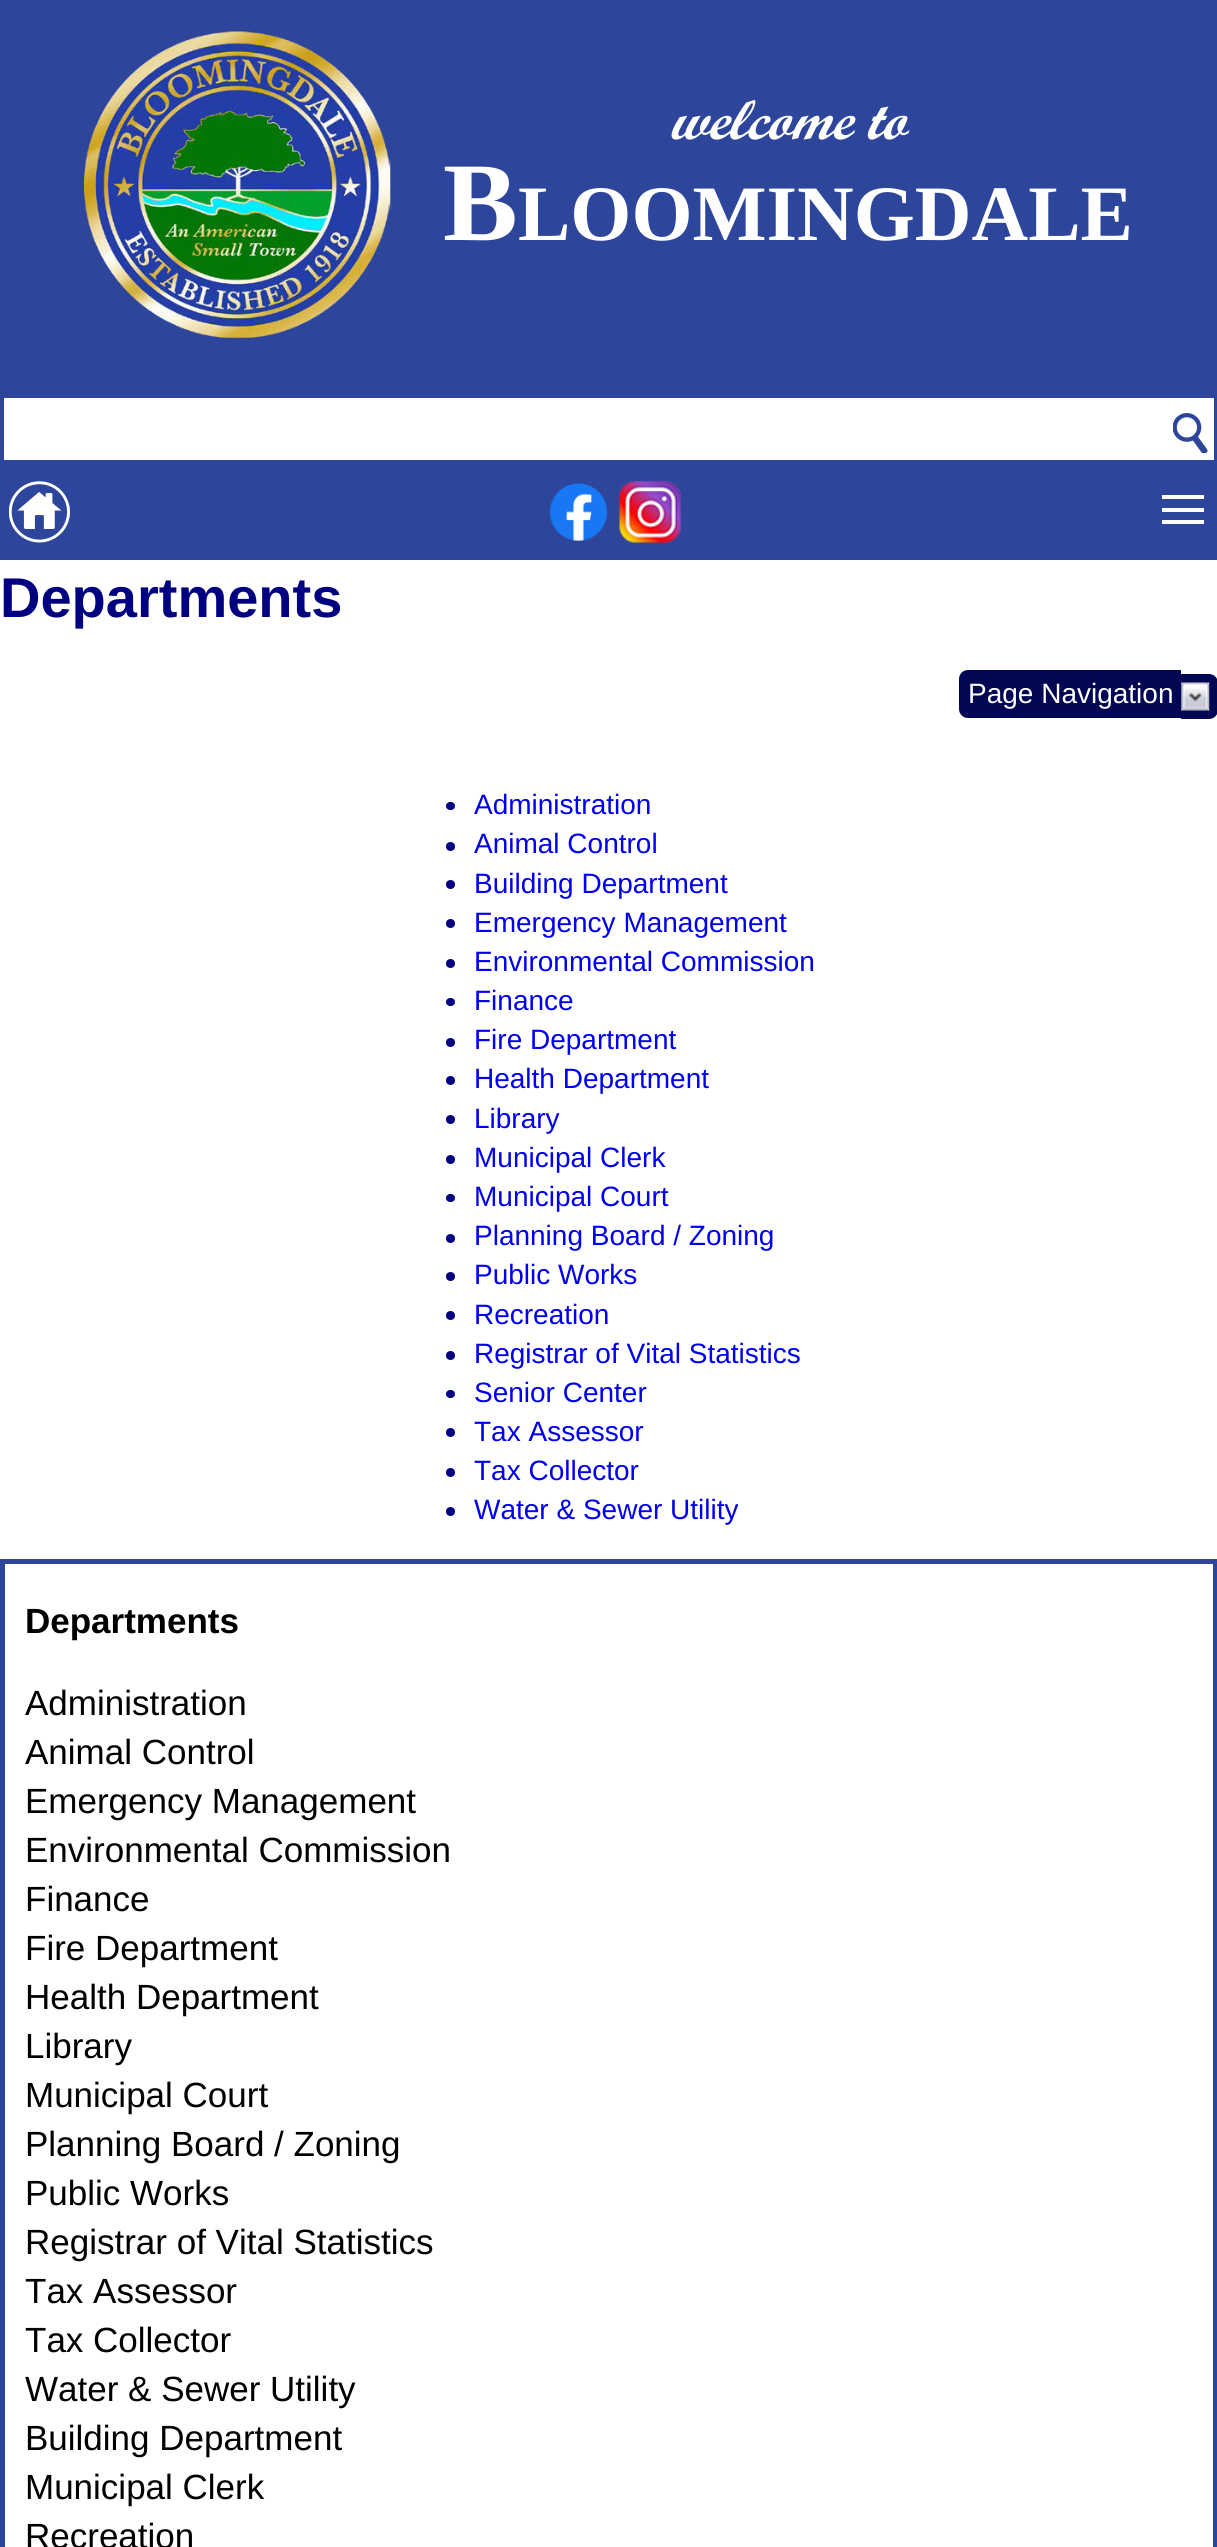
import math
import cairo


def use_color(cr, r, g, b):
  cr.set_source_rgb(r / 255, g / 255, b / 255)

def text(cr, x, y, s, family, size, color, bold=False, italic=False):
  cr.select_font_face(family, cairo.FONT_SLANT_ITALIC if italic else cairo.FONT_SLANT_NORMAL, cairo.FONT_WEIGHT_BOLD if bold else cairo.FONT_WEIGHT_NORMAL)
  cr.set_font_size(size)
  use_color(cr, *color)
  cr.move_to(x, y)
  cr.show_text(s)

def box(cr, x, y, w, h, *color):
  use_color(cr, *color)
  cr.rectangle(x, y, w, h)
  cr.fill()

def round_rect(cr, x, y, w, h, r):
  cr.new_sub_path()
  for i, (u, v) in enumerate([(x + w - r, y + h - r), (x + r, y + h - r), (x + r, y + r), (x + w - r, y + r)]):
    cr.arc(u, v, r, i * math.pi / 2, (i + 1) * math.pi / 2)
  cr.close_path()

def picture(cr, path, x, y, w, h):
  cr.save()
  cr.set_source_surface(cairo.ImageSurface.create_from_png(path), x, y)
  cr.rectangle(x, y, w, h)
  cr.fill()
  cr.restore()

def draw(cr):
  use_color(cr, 255, 255, 255)
  cr.paint()
  box(cr, 0, 0, 1217, 560, 46, 69, 156)
  picture(cr, "img_01.png", 84, 31, 307, 307)
  box(cr, 4, 398, 1210, 62, 255, 255, 255)
  picture(cr, "img_02.png", 1173, 413, 35, 40)
  picture(cr, "img_03.png", 9, 481, 61, 62)
  picture(cr, "img_04.png", 549, 483, 59, 58)
  picture(cr, "img_05.png", 619, 481, 62, 62)
  box(cr, 1162, 495, 42, 4, 255, 255, 255)
  box(cr, 1162, 508, 42, 4, 255, 255, 255)
  box(cr, 1162, 520, 42, 4, 255, 255, 255)
  use_color(cr, 3, 6, 82)
  cr.new_path()
  cr.move_to(968, 670)
  cr.line_to(1174, 670)
  cr.line_to(1174, 718)
  cr.line_to(968, 718)
  cr.curve_to(963, 718, 959, 714, 959, 709)
  cr.line_to(959, 679)
  cr.curve_to(959, 674, 963, 670, 968, 670)
  cr.close_path()
  cr.fill()
  box(cr, 1174, 670, 7, 48, 3, 6, 82)
  cr.new_path()
  cr.move_to(1181, 674)
  cr.line_to(1209, 674)
  cr.curve_to(1214, 674, 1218, 678, 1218, 683)
  cr.line_to(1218, 710)
  cr.curve_to(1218, 715, 1214, 719, 1209, 719)
  cr.line_to(1181, 719)
  cr.close_path()
  cr.fill()
  picture(cr, "img_06.png", 1181, 682, 29, 29)
  use_color(cr, 0, 0, 128)
  round_rect(cr, 446, 802, 9, 8, 4)
  cr.fill()
  cr.arc(450.5, 846.5, 4.5, 0, 2 * math.pi)
  cr.fill()
  cr.arc(450.5, 884.5, 4.5, 0, 2 * math.pi)
  cr.fill()
  cr.arc(450.5, 923.5, 4.5, 0, 2 * math.pi)
  cr.fill()
  cr.arc(450.5, 963.5, 4.5, 0, 2 * math.pi)
  cr.fill()
  round_rect(cr, 446, 998, 9, 8, 4)
  cr.fill()
  cr.arc(450.5, 1042.5, 4.5, 0, 2 * math.pi)
  cr.fill()
  cr.arc(450.5, 1080.5, 4.5, 0, 2 * math.pi)
  cr.fill()
  cr.arc(450.5, 1119.5, 4.5, 0, 2 * math.pi)
  cr.fill()
  cr.arc(450.5, 1159.5, 4.5, 0, 2 * math.pi)
  cr.fill()
  round_rect(cr, 446, 1194, 9, 8, 4)
  cr.fill()
  cr.arc(450.5, 1238.5, 4.5, 0, 2 * math.pi)
  cr.fill()
  cr.arc(450.5, 1276.5, 4.5, 0, 2 * math.pi)
  cr.fill()
  cr.arc(450.5, 1315.5, 4.5, 0, 2 * math.pi)
  cr.fill()
  cr.arc(450.5, 1355.5, 4.5, 0, 2 * math.pi)
  cr.fill()
  round_rect(cr, 446, 1390, 9, 8, 4)
  cr.fill()
  cr.arc(450.5, 1432.5, 4.5, 0, 2 * math.pi)
  cr.fill()
  cr.arc(450.5, 1472.5, 4.5, 0, 2 * math.pi)
  cr.fill()
  cr.arc(450.5, 1511.5, 4.5, 0, 2 * math.pi)
  cr.fill()
  cr.rectangle(2.5, 1561.5, 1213, 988)
  use_color(cr, 46, 69, 156)
  cr.set_line_width(5)
  cr.stroke()
  text(cr, 670, 139, "welcome to", "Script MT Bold", 56, (255, 255, 255), bold=True, italic=True)
  text(cr, 443, 240, "B", "Liberation Serif", 112, (255, 255, 255), bold=True)
  text(cr, 518, 240, "LOOMINGDALE", "Liberation Serif", 78.5, (255, 255, 255), bold=True)
  text(cr, 0, 617, "Departments", "Liberation Sans", 56, (0, 0, 128), bold=True)
  text(cr, 968, 703, "Page Navigation", "Liberation Sans", 28, (255, 255, 255))
  text(cr, 474, 814, "Administration", "Liberation Sans", 28, (0, 0, 238))
  text(cr, 474, 853, "Animal Control", "Liberation Sans", 28, (0, 0, 238))
  text(cr, 474, 893, "Building Department", "Liberation Sans", 28, (0, 0, 238))
  text(cr, 474, 932, "Emergency Management", "Liberation Sans", 28, (0, 0, 238))
  text(cr, 474, 971, "Environmental Commission", "Liberation Sans", 28, (0, 0, 238))
  text(cr, 474, 1010, "Finance", "Liberation Sans", 28, (0, 0, 238))
  text(cr, 474, 1049, "Fire Department", "Liberation Sans", 28, (0, 0, 238))
  text(cr, 474, 1088, "Health Department", "Liberation Sans", 28, (0, 0, 238))
  text(cr, 474, 1128, "Library", "Liberation Sans", 28, (0, 0, 238))
  text(cr, 474, 1167, "Municipal Clerk", "Liberation Sans", 28, (0, 0, 238))
  text(cr, 474, 1206, "Municipal Court", "Liberation Sans", 28, (0, 0, 238))
  text(cr, 474, 1245, "Planning Board / Zoning", "Liberation Sans", 28, (0, 0, 238))
  text(cr, 474, 1284, "Public Works", "Liberation Sans", 28, (0, 0, 238))
  text(cr, 474, 1324, "Recreation", "Liberation Sans", 28, (0, 0, 238))
  text(cr, 474, 1363, "Registrar of Vital Statistics", "Liberation Sans", 28, (0, 0, 238))
  text(cr, 474, 1402, "Senior Center", "Liberation Sans", 28, (0, 0, 238))
  text(cr, 474, 1441, "Tax Assessor", "Liberation Sans", 28, (0, 0, 238))
  text(cr, 474, 1480, "Tax Collector", "Liberation Sans", 28, (0, 0, 238))
  text(cr, 474, 1519, "Water & Sewer Utility", "Liberation Sans", 28, (0, 0, 238))
  text(cr, 25, 1633, "Departments", "Liberation Sans", 35, (0, 0, 0), bold=True)
  text(cr, 25, 1715, "Administration", "Liberation Sans", 35, (0, 0, 0))
  text(cr, 25, 1764, "Animal Control", "Liberation Sans", 35, (0, 0, 0))
  text(cr, 25, 1813, "Emergency Management", "Liberation Sans", 35, (0, 0, 0))
  text(cr, 25, 1862, "Environmental Commission", "Liberation Sans", 35, (0, 0, 0))
  text(cr, 25, 1911, "Finance", "Liberation Sans", 35, (0, 0, 0))
  text(cr, 25, 1960, "Fire Department", "Liberation Sans", 35, (0, 0, 0))
  text(cr, 25, 2009, "Health Department", "Liberation Sans", 35, (0, 0, 0))
  text(cr, 25, 2058, "Library", "Liberation Sans", 35, (0, 0, 0))
  text(cr, 25, 2107, "Municipal Court", "Liberation Sans", 35, (0, 0, 0))
  text(cr, 25, 2156, "Planning Board / Zoning", "Liberation Sans", 35, (0, 0, 0))
  text(cr, 25, 2205, "Public Works", "Liberation Sans", 35, (0, 0, 0))
  text(cr, 25, 2254, "Registrar of Vital Statistics", "Liberation Sans", 35, (0, 0, 0))
  text(cr, 25, 2303, "Tax Assessor", "Liberation Sans", 35, (0, 0, 0))
  text(cr, 25, 2352, "Tax Collector", "Liberation Sans", 35, (0, 0, 0))
  text(cr, 25, 2401, "Water & Sewer Utility", "Liberation Sans", 35, (0, 0, 0))
  text(cr, 25, 2450, "Building Department", "Liberation Sans", 35, (0, 0, 0))
  text(cr, 25, 2499, "Municipal Clerk", "Liberation Sans", 35, (0, 0, 0))
  text(cr, 25, 2548, "Recreation", "Liberation Sans", 35, (0, 0, 0))


surface = cairo.ImageSurface(cairo.FORMAT_RGB24, 1217, 2547)
cr = cairo.Context(surface)
options = cairo.FontOptions()
options.set_hint_metrics(cairo.HINT_METRICS_OFF)
options.set_hint_style(cairo.HINT_STYLE_NONE)
cr.set_font_options(options)
cr.set_miter_limit(4)
draw(cr)
surface.write_to_png("out.png")
